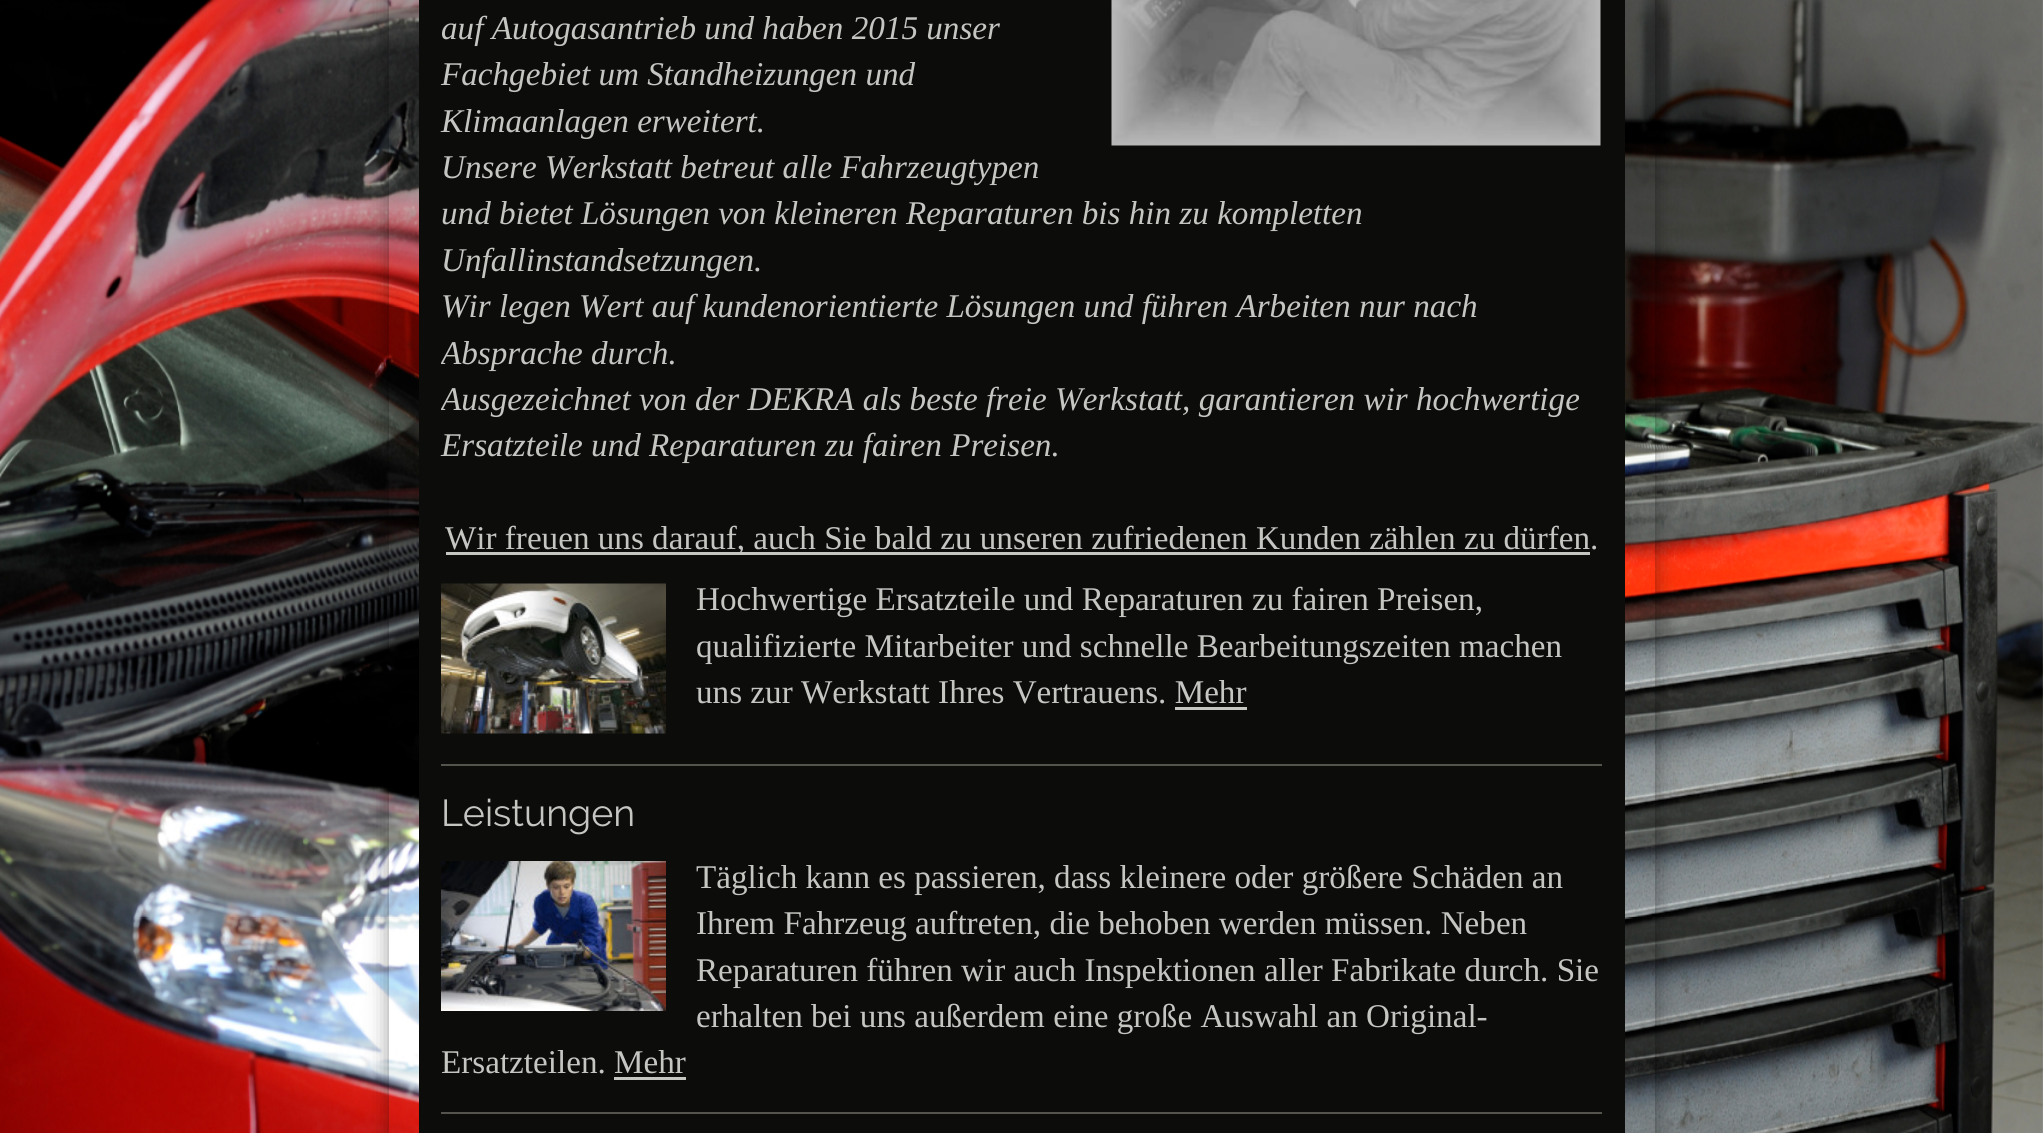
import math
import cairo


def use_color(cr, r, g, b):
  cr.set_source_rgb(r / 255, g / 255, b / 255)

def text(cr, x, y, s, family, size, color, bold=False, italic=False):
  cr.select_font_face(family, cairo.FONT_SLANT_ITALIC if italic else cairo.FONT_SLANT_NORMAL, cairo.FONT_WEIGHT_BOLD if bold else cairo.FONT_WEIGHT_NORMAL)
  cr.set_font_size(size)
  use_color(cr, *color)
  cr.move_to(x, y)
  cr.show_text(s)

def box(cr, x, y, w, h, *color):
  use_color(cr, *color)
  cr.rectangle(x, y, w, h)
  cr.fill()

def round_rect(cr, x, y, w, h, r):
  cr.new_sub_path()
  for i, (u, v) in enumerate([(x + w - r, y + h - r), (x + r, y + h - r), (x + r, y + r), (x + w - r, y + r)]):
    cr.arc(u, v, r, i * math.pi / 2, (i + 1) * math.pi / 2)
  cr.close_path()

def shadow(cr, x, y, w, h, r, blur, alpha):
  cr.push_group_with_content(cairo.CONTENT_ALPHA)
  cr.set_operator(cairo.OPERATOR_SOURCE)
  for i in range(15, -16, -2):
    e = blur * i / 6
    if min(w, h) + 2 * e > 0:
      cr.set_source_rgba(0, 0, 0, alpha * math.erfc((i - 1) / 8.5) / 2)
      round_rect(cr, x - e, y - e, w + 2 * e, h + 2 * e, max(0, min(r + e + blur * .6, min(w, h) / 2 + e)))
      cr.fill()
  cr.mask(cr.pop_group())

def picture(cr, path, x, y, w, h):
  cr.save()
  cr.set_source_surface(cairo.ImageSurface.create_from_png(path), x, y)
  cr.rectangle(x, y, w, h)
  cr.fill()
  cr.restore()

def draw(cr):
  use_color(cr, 255, 255, 255)
  cr.paint()
  picture(cr, "img_01.png", 0, 0, 2043, 1133)
  cr.save()
  cr.set_fill_rule(cairo.FILL_RULE_EVEN_ODD)
  cr.new_path()
  cr.move_to(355, 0)
  cr.line_to(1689, 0)
  cr.line_to(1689, 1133)
  cr.line_to(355, 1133)
  cr.close_path()
  cr.move_to(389, -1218)
  cr.line_to(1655, -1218)
  cr.line_to(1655, 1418)
  cr.line_to(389, 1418)
  cr.close_path()
  cr.clip()
  use_color(cr, 0, 0, 0)
  shadow(cr, 389, -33, 1266, 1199, 0, 11, 0.4)
  cr.restore()
  box(cr, 419, 0, 1206, 1133, 12, 12, 11)
  picture(cr, "img_02.png", 1111, 0, 490, 146)
  box(cr, 446, 552, 1144, 3, 197, 197, 194)
  picture(cr, "img_03.png", 441, 583, 225, 151)
  box(cr, 1175, 707, 72, 3, 197, 197, 194)
  box(cr, 441, 764, 1161, 2, 84, 84, 77)
  picture(cr, "img_04.png", 441, 861, 225, 150)
  box(cr, 614, 1077, 72, 3, 197, 197, 194)
  box(cr, 441, 1112, 1161, 2, 84, 84, 77)
  text(cr, 441, 39, "auf Autogasantrieb und haben 2015 unser", "Liberation Serif", 33.15, (197, 197, 194), italic=True)
  text(cr, 441, 85, "Fachgebiet um Standheizungen und", "Liberation Serif", 33.15, (197, 197, 194), italic=True)
  text(cr, 441, 132, "Klimaanlagen erweitert.", "Liberation Serif", 33.15, (197, 197, 194), italic=True)
  text(cr, 441, 178, "Unsere Werkstatt betreut alle Fahrzeugtypen", "Liberation Serif", 33.15, (197, 197, 194), italic=True)
  text(cr, 441, 224, "und bietet Lösungen von kleineren Reparaturen bis hin zu kompletten", "Liberation Serif", 33.15, (197, 197, 194), italic=True)
  text(cr, 441, 271, "Unfallinstandsetzungen.", "Liberation Serif", 33.15, (197, 197, 194), italic=True)
  text(cr, 441, 317, "Wir legen Wert auf kundenorientierte Lösungen und führen Arbeiten nur nach", "Liberation Serif", 33.15, (197, 197, 194), italic=True)
  cr.save()
  cr.rectangle(441, 0, 1161, 563)
  cr.clip()
  text(cr, 441, 364, "Absprache durch.", "Liberation Serif", 33.15, (197, 197, 194), italic=True)
  text(cr, 441, 410, "Ausgezeichnet von der DEKRA als beste freie Werkstatt, garantieren wir hochwertige", "Liberation Serif", 33.15, (197, 197, 194), italic=True)
  cr.restore()
  text(cr, 441, 456, "Ersatzteile und Reparaturen zu fairen Preisen.", "Liberation Serif", 33.15, (197, 197, 194), italic=True)
  text(cr, 445, 549, "Wir freuen uns darauf, auch Sie bald zu unseren zufriedenen Kunden zählen zu dürfen", "Liberation Serif", 33.15, (197, 197, 194))
  text(cr, 1590, 549, ".", "Liberation Serif", 33.15, (197, 197, 194))
  text(cr, 696, 610, "Hochwertige Ersatzteile und Reparaturen zu fairen Preisen,", "Liberation Serif", 33.15, (197, 197, 194))
  text(cr, 696, 657, "qualifizierte Mitarbeiter und schnelle Bearbeitungszeiten machen", "Liberation Serif", 33.15, (197, 197, 194))
  text(cr, 696, 703, "uns zur Werkstatt Ihres Vertrauens. Mehr", "Liberation Serif", 33.15, (197, 197, 194))
  text(cr, 441, 826, "Leistungen", "Raleway", 37.5, (197, 197, 194))
  text(cr, 696, 888, "Täglich kann es passieren, dass kleinere oder größere Schäden an", "Liberation Serif", 33.15, (197, 197, 194))
  text(cr, 696, 934, "Ihrem Fahrzeug auftreten, die behoben werden müssen. Neben", "Liberation Serif", 33.15, (197, 197, 194))
  text(cr, 696, 981, "Reparaturen führen wir auch Inspektionen aller Fabrikate durch. Sie", "Liberation Serif", 33.15, (197, 197, 194))
  text(cr, 696, 1027, "erhalten bei uns außerdem eine große Auswahl an Original-", "Liberation Serif", 33.15, (197, 197, 194))
  text(cr, 441, 1073, "Ersatzteilen. Mehr", "Liberation Serif", 33.15, (197, 197, 194))


surface = cairo.ImageSurface(cairo.FORMAT_RGB24, 2043, 1133)
cr = cairo.Context(surface)
options = cairo.FontOptions()
options.set_hint_metrics(cairo.HINT_METRICS_OFF)
options.set_hint_style(cairo.HINT_STYLE_NONE)
cr.set_font_options(options)
cr.set_miter_limit(4)
draw(cr)
surface.write_to_png("out.png")
